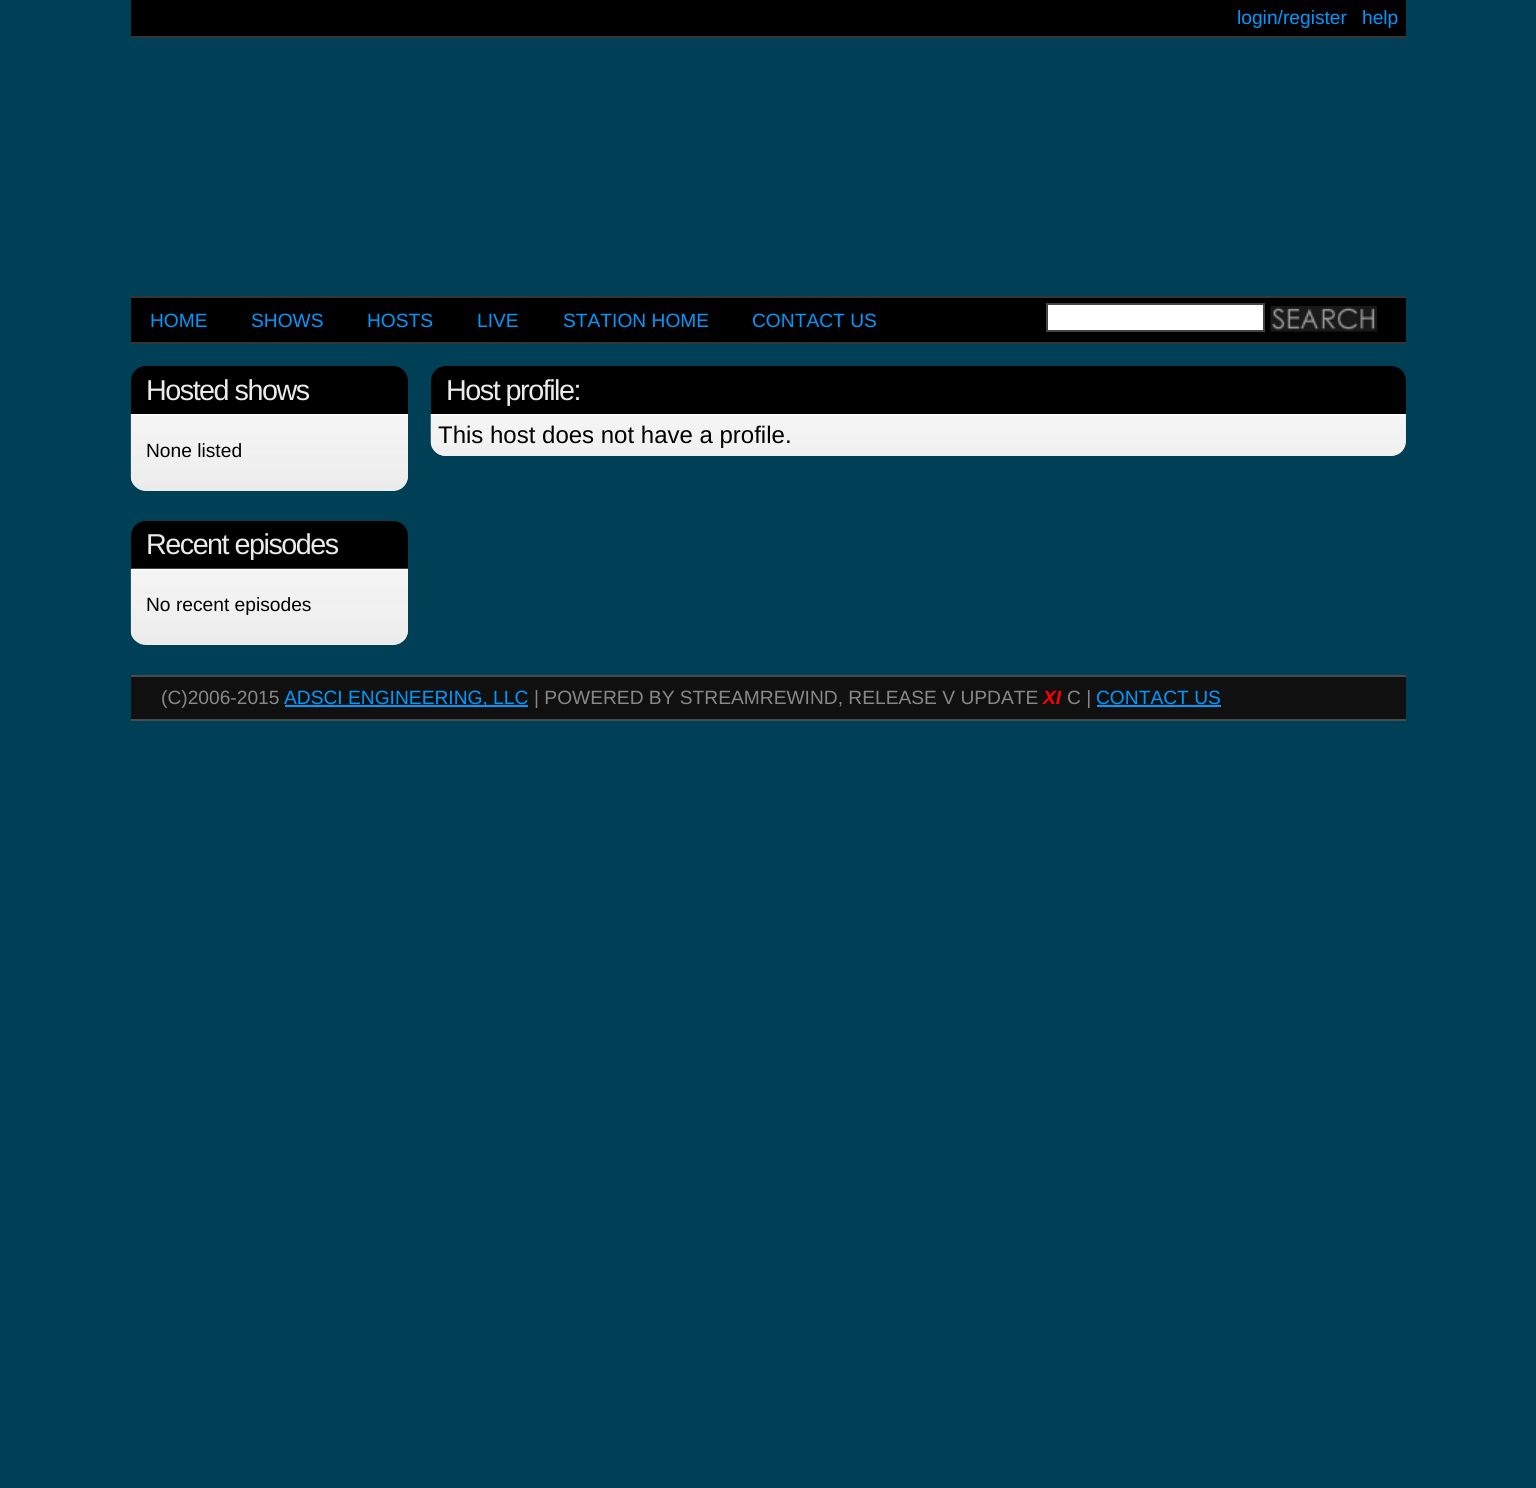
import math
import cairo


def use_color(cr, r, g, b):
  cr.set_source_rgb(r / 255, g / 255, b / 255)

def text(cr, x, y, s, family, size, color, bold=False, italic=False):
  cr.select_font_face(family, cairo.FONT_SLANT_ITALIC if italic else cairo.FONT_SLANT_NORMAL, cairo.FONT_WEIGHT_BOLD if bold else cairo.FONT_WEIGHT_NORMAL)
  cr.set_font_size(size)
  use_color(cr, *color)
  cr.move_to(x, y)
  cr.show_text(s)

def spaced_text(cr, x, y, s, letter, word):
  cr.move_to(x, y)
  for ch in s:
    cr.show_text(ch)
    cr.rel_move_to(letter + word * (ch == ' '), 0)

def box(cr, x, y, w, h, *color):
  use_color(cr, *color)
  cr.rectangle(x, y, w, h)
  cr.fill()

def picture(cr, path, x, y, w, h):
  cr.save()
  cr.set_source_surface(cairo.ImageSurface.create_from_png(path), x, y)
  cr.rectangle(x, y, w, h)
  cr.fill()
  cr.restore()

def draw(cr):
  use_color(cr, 0, 64, 86)
  cr.paint()
  box(cr, 131, 0, 1275, 36, 0, 0, 0)
  box(cr, 131, 36, 1275, 2, 53, 53, 53)
  box(cr, 131, 298, 1275, 44, 0, 0, 0)
  box(cr, 131, 296, 1275, 2, 53, 53, 53)
  box(cr, 131, 342, 1275, 2, 53, 53, 53)
  use_color(cr, 255, 255, 255)
  cr.rectangle(1047, 304, 217, 27)
  cr.fill_preserve()
  use_color(cr, 68, 68, 68)
  cr.stroke()
  picture(cr, "img_01.png", 1270, 306, 107, 26)
  use_color(cr, 0, 0, 0)
  cr.new_path()
  cr.move_to(146, 366)
  cr.line_to(393, 366)
  cr.curve_to(401.5, 366, 408, 372.5, 408, 381)
  cr.line_to(408, 414)
  cr.line_to(131, 414)
  cr.line_to(131, 381)
  cr.curve_to(131, 372.5, 137.5, 366, 146, 366)
  cr.close_path()
  cr.fill()
  use_color(cr, 235, 235, 235)
  cr.new_path()
  cr.move_to(131, 414)
  cr.line_to(408, 414)
  cr.line_to(408, 476)
  cr.curve_to(408, 484.5, 401.5, 491, 393, 491)
  cr.line_to(146, 491)
  cr.curve_to(137.5, 491, 131, 484.5, 131, 476)
  cr.close_path()
  cr.fill()
  picture(cr, "img_02.png", 130, 414, 278, 73)
  use_color(cr, 0, 0, 0)
  cr.new_path()
  cr.move_to(446, 366)
  cr.line_to(1391, 366)
  cr.curve_to(1399.5, 366, 1406, 372.5, 1406, 381)
  cr.line_to(1406, 414)
  cr.line_to(431, 414)
  cr.line_to(431, 381)
  cr.curve_to(431, 372.5, 437.5, 366, 446, 366)
  cr.close_path()
  cr.fill()
  use_color(cr, 235, 235, 235)
  cr.new_path()
  cr.move_to(431, 414)
  cr.line_to(1406, 414)
  cr.line_to(1406, 441)
  cr.curve_to(1406, 449.5, 1399.5, 456, 1391, 456)
  cr.line_to(446, 456)
  cr.curve_to(437.5, 456, 431, 449.5, 431, 441)
  cr.close_path()
  cr.fill()
  picture(cr, "img_03.png", 430, 414, 975, 42)
  use_color(cr, 0, 0, 0)
  cr.new_path()
  cr.move_to(146, 521)
  cr.line_to(393, 521)
  cr.curve_to(401.5, 521, 408, 527.5, 408, 536)
  cr.line_to(408, 569)
  cr.line_to(131, 569)
  cr.line_to(131, 536)
  cr.curve_to(131, 527.5, 137.5, 521, 146, 521)
  cr.close_path()
  cr.fill()
  use_color(cr, 235, 235, 235)
  cr.new_path()
  cr.move_to(131, 569)
  cr.line_to(408, 569)
  cr.line_to(408, 630)
  cr.curve_to(408, 638.5, 401.5, 645, 393, 645)
  cr.line_to(146, 645)
  cr.curve_to(137.5, 645, 131, 638.5, 131, 630)
  cr.close_path()
  cr.fill()
  picture(cr, "img_04.png", 130, 568, 278, 73)
  box(cr, 131, 677, 1275, 42, 16, 16, 16)
  box(cr, 131, 675, 1275, 2, 75, 75, 75)
  box(cr, 131, 719, 1275, 2, 75, 75, 75)
  box(cr, 285, 705, 243, 2, 0, 153, 255)
  box(cr, 1097, 705, 124, 2, 0, 153, 255)
  text(cr, 1237, 24, "login/register", "Liberation Sans", 19.2, (0, 153, 255))
  text(cr, 1362, 24, "help", "Liberation Sans", 19.2, (0, 153, 255))
  text(cr, 150, 327, "HOME", "Liberation Sans", 19.2, (0, 153, 255))
  text(cr, 251, 327, "SHOWS", "Liberation Sans", 19.2, (0, 153, 255))
  text(cr, 367, 327, "HOSTS", "Liberation Sans", 19.2, (0, 153, 255))
  text(cr, 477, 327, "LIVE", "Liberation Sans", 19.2, (0, 153, 255))
  text(cr, 563, 327, "STATION HOME", "Liberation Sans", 19.2, (0, 153, 255))
  text(cr, 752, 327, "CONTACT US", "Liberation Sans", 19.2, (0, 153, 255))
  cr.set_font_size(28.75)
  use_color(cr, 235, 235, 235)
  spaced_text(cr, 146, 400, "Hosted shows", -1.5, 0)
  text(cr, 146, 457, "None listed", "Liberation Sans", 19.2, (0, 0, 0))
  cr.set_font_size(28.75)
  use_color(cr, 235, 235, 235)
  spaced_text(cr, 446, 400, "Host profile:", -1.5, 0)
  text(cr, 438, 443, "This host does not have a profile.", "Liberation Sans", 24, (0, 0, 0))
  cr.set_font_size(28.75)
  use_color(cr, 235, 235, 235)
  spaced_text(cr, 146, 554, "Recent episodes", -1.5, 0)
  text(cr, 146, 611, "No recent episodes", "Liberation Sans", 19.2, (0, 0, 0))
  text(cr, 161, 704, "(C)2006-2015", "Liberation Sans", 19.2, (136, 136, 136))
  text(cr, 284, 704, "ADSCI ENGINEERING, LLC", "Liberation Sans", 19.2, (0, 153, 255))
  text(cr, 534, 704, "| POWERED BY STREAMREWIND, RELEASE V UPDATE", "Liberation Sans", 19.2, (136, 136, 136))
  text(cr, 1043, 704, "XI", "Liberation Sans", 19.2, (255, 0, 0), bold=True, italic=True)
  text(cr, 1067, 704, "C |", "Liberation Sans", 19.2, (136, 136, 136))
  text(cr, 1096, 704, "CONTACT US", "Liberation Sans", 19.2, (0, 153, 255))


surface = cairo.ImageSurface(cairo.FORMAT_RGB24, 1536, 1488)
cr = cairo.Context(surface)
options = cairo.FontOptions()
options.set_hint_metrics(cairo.HINT_METRICS_OFF)
options.set_hint_style(cairo.HINT_STYLE_NONE)
cr.set_font_options(options)
cr.set_miter_limit(4)
draw(cr)
surface.write_to_png("out.png")
